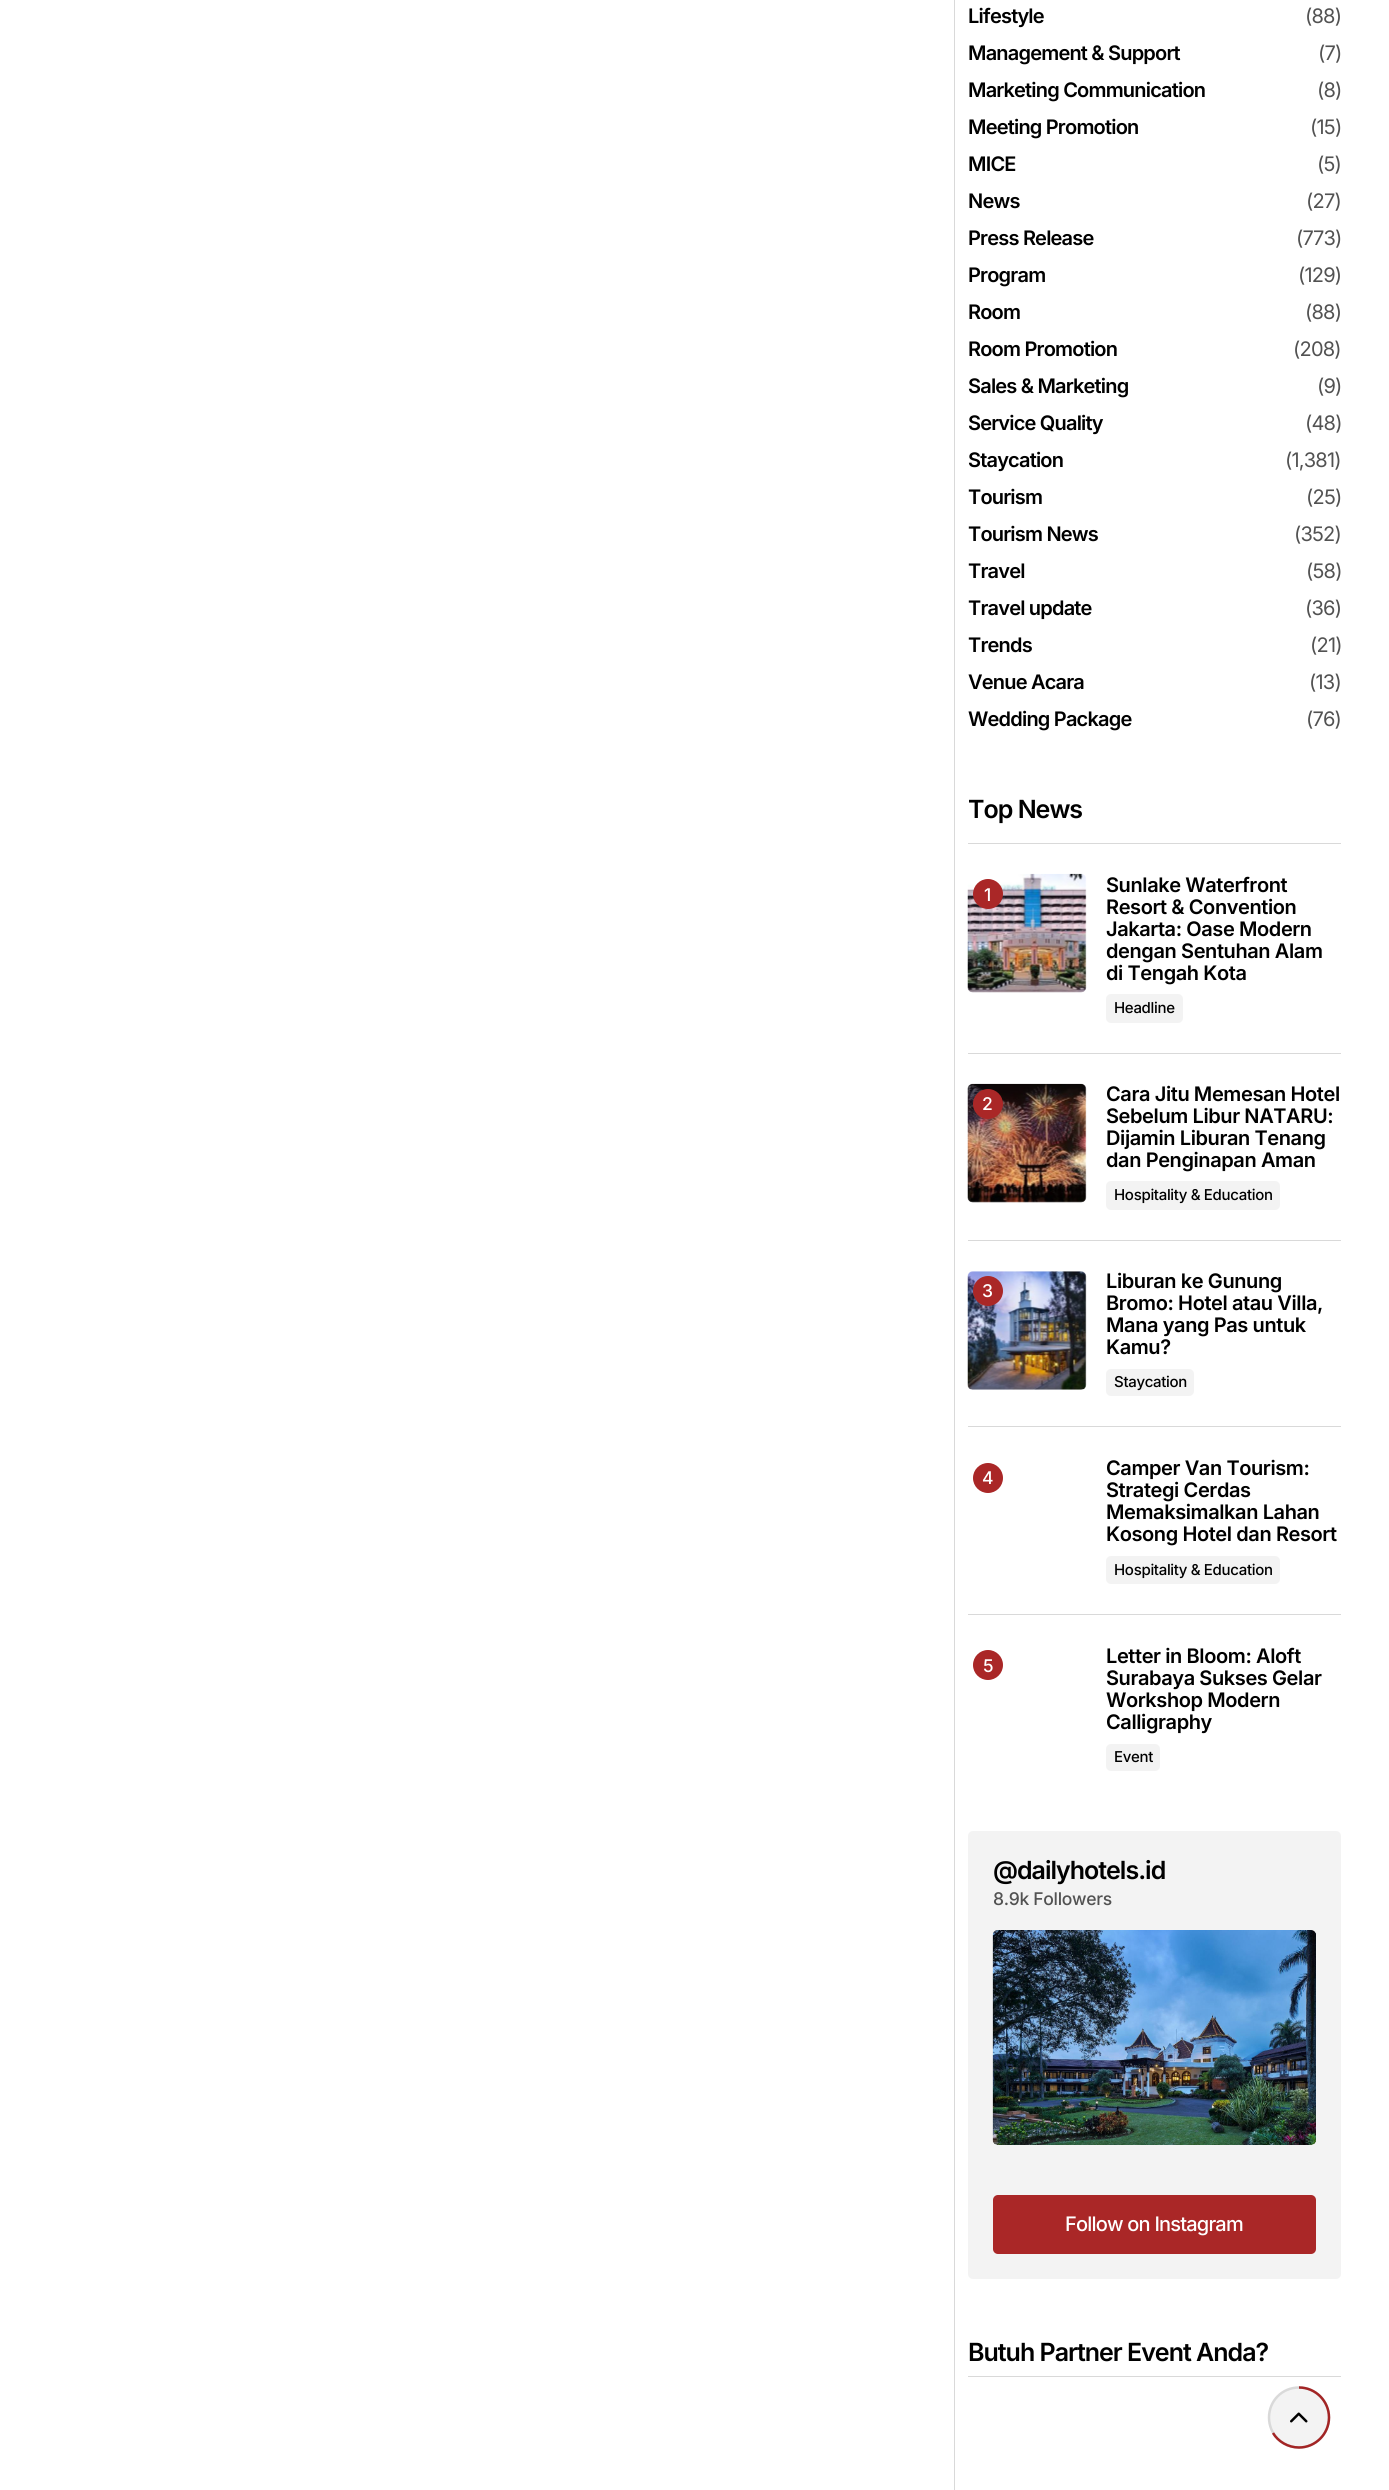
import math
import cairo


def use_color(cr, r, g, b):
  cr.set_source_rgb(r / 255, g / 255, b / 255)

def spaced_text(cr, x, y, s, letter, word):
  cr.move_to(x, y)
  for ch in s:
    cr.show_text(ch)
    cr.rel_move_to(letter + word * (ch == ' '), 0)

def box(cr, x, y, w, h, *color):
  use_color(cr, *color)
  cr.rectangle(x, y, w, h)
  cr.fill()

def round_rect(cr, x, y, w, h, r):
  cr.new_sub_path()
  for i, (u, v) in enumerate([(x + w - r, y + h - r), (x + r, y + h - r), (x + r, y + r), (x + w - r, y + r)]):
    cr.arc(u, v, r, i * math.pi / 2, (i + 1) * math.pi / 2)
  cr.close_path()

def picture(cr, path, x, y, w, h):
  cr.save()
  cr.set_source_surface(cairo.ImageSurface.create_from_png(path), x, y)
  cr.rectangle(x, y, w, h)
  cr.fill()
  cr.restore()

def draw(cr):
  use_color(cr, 255, 255, 255)
  cr.paint()
  box(cr, 954, 0, 1, 2490, 217, 217, 217)
  box(cr, 968, 843, 373, 1, 217, 217, 217)
  picture(cr, "img_01.png", 967, 873, 120, 120)
  use_color(cr, 170, 39, 39)
  cr.arc(988, 894, 15, 0, 2 * math.pi)
  cr.fill()
  use_color(cr, 243, 243, 243)
  round_rect(cr, 1106, 994, 77, 29, 5)
  cr.fill()
  box(cr, 968, 1053, 373, 1, 217, 217, 217)
  picture(cr, "img_02.png", 967, 1083, 120, 120)
  use_color(cr, 170, 39, 39)
  cr.arc(988, 1104, 15, 0, 2 * math.pi)
  cr.fill()
  use_color(cr, 243, 243, 243)
  round_rect(cr, 1106, 1181, 174, 29, 5)
  cr.fill()
  box(cr, 968, 1240, 373, 1, 217, 217, 217)
  picture(cr, "img_03.png", 967, 1271, 120, 119)
  use_color(cr, 170, 39, 39)
  cr.arc(988, 1291, 15, 0, 2 * math.pi)
  cr.fill()
  use_color(cr, 243, 243, 243)
  round_rect(cr, 1106, 1369, 88, 27, 5)
  cr.fill()
  box(cr, 968, 1426, 373, 1, 217, 217, 217)
  use_color(cr, 170, 39, 39)
  cr.arc(988, 1478, 15, 0, 2 * math.pi)
  cr.fill()
  use_color(cr, 243, 243, 243)
  round_rect(cr, 1106, 1556, 174, 28, 5)
  cr.fill()
  box(cr, 968, 1614, 373, 1, 217, 217, 217)
  use_color(cr, 170, 39, 39)
  cr.arc(988, 1665, 15, 0, 2 * math.pi)
  cr.fill()
  use_color(cr, 243, 243, 243)
  round_rect(cr, 1106, 1744, 54, 27, 5)
  cr.fill()
  round_rect(cr, 968, 1831, 373, 448, 5)
  cr.fill()
  picture(cr, "img_04.png", 992, 1930, 324, 215)
  use_color(cr, 170, 39, 39)
  round_rect(cr, 993, 2195, 323, 59, 5)
  cr.fill()
  box(cr, 968, 2376, 373, 1, 217, 217, 217)
  use_color(cr, 243, 243, 243)
  cr.arc(1299, 2418, 30, 0, 2 * math.pi)
  cr.fill()
  picture(cr, "img_05.png", 1290, 2412, 18, 11)
  cr.new_path()
  cr.move_to(1299, 2387.5)
  cr.curve_to(1315.5, 2387.5, 1329, 2401, 1329, 2417.5)
  cr.curve_to(1329, 2434, 1315.5, 2447.5, 1299, 2447.5)
  cr.curve_to(1282, 2447.5, 1269, 2434, 1269, 2417.5)
  cr.curve_to(1269, 2401, 1282, 2387.5, 1299, 2387.5)
  use_color(cr, 217, 217, 217)
  cr.set_line_width(2.5)
  cr.stroke()
  cr.new_path()
  cr.move_to(1299, 2387.5)
  cr.curve_to(1315.5, 2387.5, 1329, 2401, 1329, 2417.5)
  cr.curve_to(1329, 2434, 1315.5, 2447.5, 1299, 2447.5)
  cr.curve_to(1288, 2447.5, 1278, 2441.5, 1273, 2433)
  use_color(cr, 163, 37, 37)
  cr.stroke()
  cr.select_font_face("Inter SemiBold")
  cr.set_font_size(20)
  use_color(cr, 0, 0, 0)
  spaced_text(cr, 968, 23, "Lifestyle", -0.8, 0)
  cr.select_font_face("Inter")
  use_color(cr, 82, 82, 82)
  spaced_text(cr, 1305, 23, "(88)", -0.8, 0)
  cr.select_font_face("Inter SemiBold")
  use_color(cr, 0, 0, 0)
  spaced_text(cr, 968, 60, "Management & Support", -0.8, 0)
  cr.select_font_face("Inter")
  use_color(cr, 82, 82, 82)
  spaced_text(cr, 1318, 60, "(7)", -0.8, 0)
  cr.select_font_face("Inter SemiBold")
  use_color(cr, 0, 0, 0)
  spaced_text(cr, 968, 97, "Marketing Communication", -0.8, 0)
  cr.select_font_face("Inter")
  use_color(cr, 82, 82, 82)
  spaced_text(cr, 1317, 97, "(8)", -0.8, 0)
  cr.select_font_face("Inter SemiBold")
  use_color(cr, 0, 0, 0)
  spaced_text(cr, 968, 134, "Meeting Promotion", -0.8, 0)
  cr.select_font_face("Inter")
  use_color(cr, 82, 82, 82)
  spaced_text(cr, 1310, 134, "(15)", -0.8, 0)
  cr.select_font_face("Inter SemiBold")
  use_color(cr, 0, 0, 0)
  spaced_text(cr, 968, 171, "MICE", -0.8, 0)
  cr.select_font_face("Inter")
  use_color(cr, 82, 82, 82)
  spaced_text(cr, 1317, 171, "(5)", -0.8, 0)
  cr.select_font_face("Inter SemiBold")
  use_color(cr, 0, 0, 0)
  spaced_text(cr, 968, 208, "News", -0.8, 0)
  cr.select_font_face("Inter")
  use_color(cr, 82, 82, 82)
  spaced_text(cr, 1306, 208, "(27)", -0.8, 0)
  cr.select_font_face("Inter SemiBold")
  use_color(cr, 0, 0, 0)
  spaced_text(cr, 968, 245, "Press Release", -0.8, 0)
  cr.select_font_face("Inter")
  use_color(cr, 82, 82, 82)
  spaced_text(cr, 1296, 245, "(773)", -0.8, 0)
  cr.select_font_face("Inter SemiBold")
  use_color(cr, 0, 0, 0)
  spaced_text(cr, 968, 282, "Program", -0.8, 0)
  cr.select_font_face("Inter")
  use_color(cr, 82, 82, 82)
  spaced_text(cr, 1298, 282, "(129)", -0.8, 0)
  cr.select_font_face("Inter SemiBold")
  use_color(cr, 0, 0, 0)
  spaced_text(cr, 968, 319, "Room", -0.8, 0)
  cr.select_font_face("Inter")
  use_color(cr, 82, 82, 82)
  spaced_text(cr, 1305, 319, "(88)", -0.8, 0)
  cr.select_font_face("Inter SemiBold")
  use_color(cr, 0, 0, 0)
  spaced_text(cr, 968, 356, "Room Promotion", -0.8, 0)
  cr.select_font_face("Inter")
  use_color(cr, 82, 82, 82)
  spaced_text(cr, 1293, 356, "(208)", -0.8, 0)
  cr.select_font_face("Inter SemiBold")
  use_color(cr, 0, 0, 0)
  spaced_text(cr, 968, 393, "Sales & Marketing", -0.8, 0)
  cr.select_font_face("Inter")
  use_color(cr, 82, 82, 82)
  spaced_text(cr, 1317, 393, "(9)", -0.8, 0)
  cr.select_font_face("Inter SemiBold")
  use_color(cr, 0, 0, 0)
  spaced_text(cr, 968, 430, "Service Quality", -0.8, 0)
  cr.select_font_face("Inter")
  use_color(cr, 82, 82, 82)
  spaced_text(cr, 1305, 430, "(48)", -0.8, 0)
  cr.select_font_face("Inter SemiBold")
  use_color(cr, 0, 0, 0)
  spaced_text(cr, 968, 467, "Staycation", -0.8, 0)
  cr.select_font_face("Inter")
  use_color(cr, 82, 82, 82)
  spaced_text(cr, 1285, 467, "(1,381)", -0.8, 0)
  cr.select_font_face("Inter SemiBold")
  use_color(cr, 0, 0, 0)
  spaced_text(cr, 968, 504, "Tourism", -0.8, 0)
  cr.select_font_face("Inter")
  use_color(cr, 82, 82, 82)
  spaced_text(cr, 1306, 504, "(25)", -0.8, 0)
  cr.select_font_face("Inter SemiBold")
  use_color(cr, 0, 0, 0)
  spaced_text(cr, 968, 541, "Tourism News", -0.8, 0)
  cr.select_font_face("Inter")
  use_color(cr, 82, 82, 82)
  spaced_text(cr, 1294, 541, "(352)", -0.8, 0)
  cr.select_font_face("Inter SemiBold")
  use_color(cr, 0, 0, 0)
  spaced_text(cr, 968, 578, "Travel", -0.8, 0)
  cr.select_font_face("Inter")
  use_color(cr, 82, 82, 82)
  spaced_text(cr, 1306, 578, "(58)", -0.8, 0)
  cr.select_font_face("Inter SemiBold")
  use_color(cr, 0, 0, 0)
  spaced_text(cr, 968, 615, "Travel update", -0.8, 0)
  cr.select_font_face("Inter")
  use_color(cr, 82, 82, 82)
  spaced_text(cr, 1305, 615, "(36)", -0.8, 0)
  cr.select_font_face("Inter SemiBold")
  use_color(cr, 0, 0, 0)
  spaced_text(cr, 968, 652, "Trends", -0.8, 0)
  cr.select_font_face("Inter")
  use_color(cr, 82, 82, 82)
  spaced_text(cr, 1310, 652, "(21)", -0.8, 0)
  cr.select_font_face("Inter SemiBold")
  use_color(cr, 0, 0, 0)
  spaced_text(cr, 968, 689, "Venue Acara", -0.8, 0)
  cr.select_font_face("Inter")
  use_color(cr, 82, 82, 82)
  spaced_text(cr, 1309, 689, "(13)", -0.8, 0)
  cr.select_font_face("Inter SemiBold")
  use_color(cr, 0, 0, 0)
  spaced_text(cr, 968, 726, "Wedding Package", -0.8, 0)
  cr.select_font_face("Inter")
  use_color(cr, 82, 82, 82)
  spaced_text(cr, 1306, 726, "(76)", -0.8, 0)
  cr.select_font_face("Inter SemiBold")
  cr.set_font_size(25)
  use_color(cr, 0, 0, 0)
  spaced_text(cr, 968, 818, "Top News", -1, 0)
  cr.select_font_face("Inter Medium")
  cr.set_font_size(17.5)
  use_color(cr, 255, 255, 255)
  spaced_text(cr, 984, 901, "1", -1, 0)
  cr.select_font_face("Inter SemiBold")
  cr.set_font_size(20)
  use_color(cr, 0, 0, 0)
  spaced_text(cr, 1106, 892, "Sunlake Waterfront", -0.4, 0)
  spaced_text(cr, 1106, 914, "Resort & Convention", -0.4, 0)
  spaced_text(cr, 1106, 936, "Jakarta: Oase Modern", -0.4, 0)
  spaced_text(cr, 1106, 958, "dengan Sentuhan Alam", -0.4, 0)
  spaced_text(cr, 1106, 980, "di Tengah Kota", -0.4, 0)
  cr.select_font_face("Inter Medium")
  cr.set_font_size(15)
  spaced_text(cr, 1114, 1013, "Headline", -0.3, 0)
  cr.set_font_size(17.5)
  use_color(cr, 255, 255, 255)
  spaced_text(cr, 982, 1110, "2", -1, 0)
  cr.select_font_face("Inter SemiBold")
  cr.set_font_size(20)
  use_color(cr, 0, 0, 0)
  spaced_text(cr, 1106, 1101, "Cara Jitu Memesan Hotel", -0.4, 0)
  spaced_text(cr, 1106, 1123, "Sebelum Libur NATARU:", -0.4, 0)
  spaced_text(cr, 1106, 1145, "Dijamin Liburan Tenang", -0.4, 0)
  spaced_text(cr, 1106, 1167, "dan Penginapan Aman", -0.4, 0)
  cr.select_font_face("Inter Medium")
  cr.set_font_size(15)
  spaced_text(cr, 1114, 1200, "Hospitality & Education", -0.3, 0)
  cr.set_font_size(17.5)
  use_color(cr, 255, 255, 255)
  spaced_text(cr, 982, 1297, "3", -1, 0)
  cr.select_font_face("Inter SemiBold")
  cr.set_font_size(20)
  use_color(cr, 0, 0, 0)
  spaced_text(cr, 1106, 1288, "Liburan ke Gunung", -0.4, 0)
  spaced_text(cr, 1106, 1310, "Bromo: Hotel atau Villa,", -0.4, 0)
  spaced_text(cr, 1106, 1332, "Mana yang Pas untuk", -0.4, 0)
  spaced_text(cr, 1106, 1354, "Kamu?", -0.4, 0)
  cr.select_font_face("Inter Medium")
  cr.set_font_size(15)
  spaced_text(cr, 1114, 1387, "Staycation", -0.3, 0)
  cr.set_font_size(17.5)
  use_color(cr, 255, 255, 255)
  spaced_text(cr, 982, 1484, "4", -1, 0)
  cr.select_font_face("Inter SemiBold")
  cr.set_font_size(20)
  use_color(cr, 0, 0, 0)
  spaced_text(cr, 1106, 1475, "Camper Van Tourism:", -0.4, 0)
  spaced_text(cr, 1106, 1497, "Strategi Cerdas", -0.4, 0)
  spaced_text(cr, 1106, 1519, "Memaksimalkan Lahan", -0.4, 0)
  spaced_text(cr, 1106, 1541, "Kosong Hotel dan Resort", -0.4, 0)
  cr.select_font_face("Inter Medium")
  cr.set_font_size(15)
  spaced_text(cr, 1114, 1575, "Hospitality & Education", -0.3, 0)
  cr.set_font_size(17.5)
  use_color(cr, 255, 255, 255)
  spaced_text(cr, 983, 1672, "5", -1, 0)
  cr.select_font_face("Inter SemiBold")
  cr.set_font_size(20)
  use_color(cr, 0, 0, 0)
  spaced_text(cr, 1106, 1663, "Letter in Bloom: Aloft", -0.4, 0)
  spaced_text(cr, 1106, 1685, "Surabaya Sukses Gelar", -0.4, 0)
  spaced_text(cr, 1106, 1707, "Workshop Modern", -0.4, 0)
  spaced_text(cr, 1106, 1729, "Calligraphy", -0.4, 0)
  cr.select_font_face("Inter Medium")
  cr.set_font_size(15)
  spaced_text(cr, 1114, 1762, "Event", -0.3, 0)
  cr.select_font_face("Inter SemiBold")
  cr.set_font_size(25)
  spaced_text(cr, 993, 1879, "@dailyhotels.id", -1, 0)
  cr.select_font_face("Inter Medium")
  cr.set_font_size(17.5)
  use_color(cr, 82, 82, 82)
  spaced_text(cr, 993, 1905, "8.9k Followers", -0.3, 0)
  cr.set_font_size(20)
  use_color(cr, 255, 255, 255)
  spaced_text(cr, 1065, 2231, "Follow on Instagram", -0.8, 0)
  cr.select_font_face("Inter SemiBold")
  cr.set_font_size(25)
  use_color(cr, 0, 0, 0)
  spaced_text(cr, 968, 2361, "Butuh Partner Event Anda?", -1, 0)


surface = cairo.ImageSurface(cairo.FORMAT_RGB24, 1389, 2490)
cr = cairo.Context(surface)
options = cairo.FontOptions()
options.set_hint_metrics(cairo.HINT_METRICS_OFF)
options.set_hint_style(cairo.HINT_STYLE_NONE)
cr.set_font_options(options)
cr.set_miter_limit(4)
draw(cr)
surface.write_to_png("out.png")
